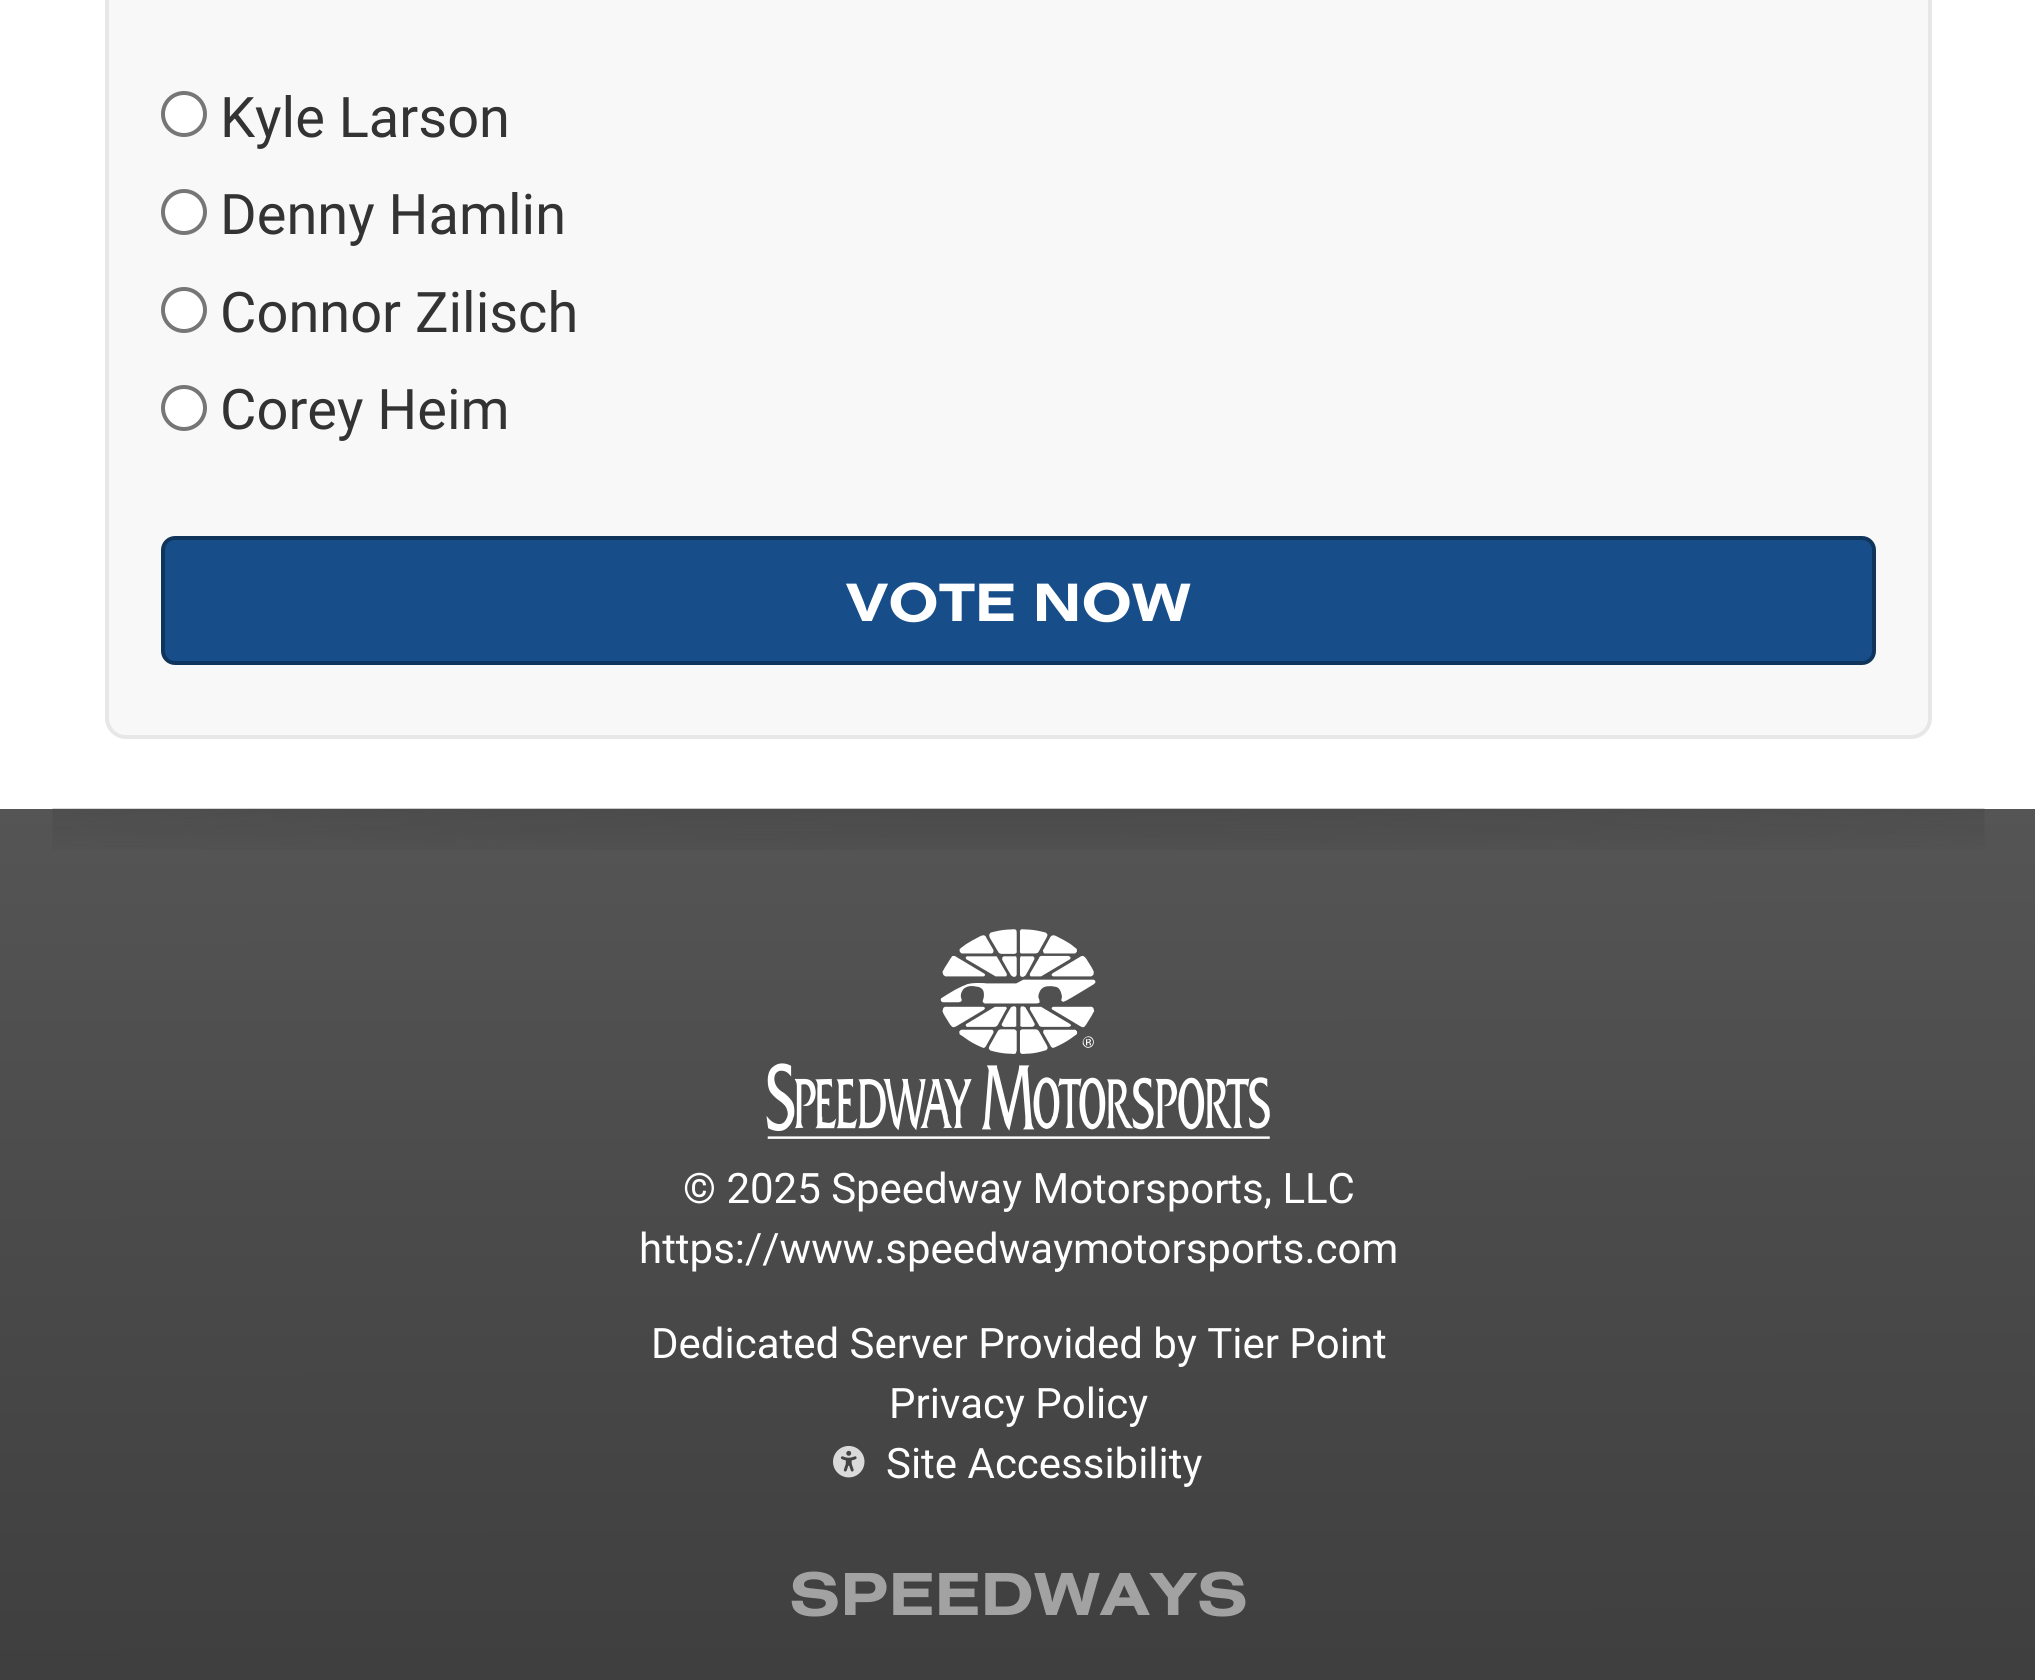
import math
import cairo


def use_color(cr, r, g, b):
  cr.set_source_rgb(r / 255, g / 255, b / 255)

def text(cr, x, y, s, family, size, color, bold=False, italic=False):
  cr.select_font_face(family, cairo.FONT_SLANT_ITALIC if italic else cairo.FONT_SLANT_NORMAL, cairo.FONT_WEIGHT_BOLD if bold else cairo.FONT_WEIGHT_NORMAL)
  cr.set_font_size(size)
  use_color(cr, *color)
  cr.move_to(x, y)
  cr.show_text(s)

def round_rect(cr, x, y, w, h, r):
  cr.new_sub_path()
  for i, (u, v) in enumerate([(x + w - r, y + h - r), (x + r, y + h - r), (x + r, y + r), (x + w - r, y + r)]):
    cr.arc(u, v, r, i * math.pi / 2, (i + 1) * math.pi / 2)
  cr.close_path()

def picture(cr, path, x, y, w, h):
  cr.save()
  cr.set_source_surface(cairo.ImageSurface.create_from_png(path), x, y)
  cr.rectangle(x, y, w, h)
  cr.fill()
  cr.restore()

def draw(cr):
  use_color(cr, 255, 255, 255)
  cr.paint()
  use_color(cr, 248, 248, 248)
  round_rect(cr, 107, -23, 1823, 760, 19)
  cr.fill_preserve()
  use_color(cr, 231, 231, 231)
  cr.set_line_width(4)
  cr.stroke()
  use_color(cr, 255, 255, 255)
  cr.arc(184, 114, 21, 0, 2 * math.pi)
  cr.fill_preserve()
  use_color(cr, 118, 118, 118)
  cr.stroke()
  use_color(cr, 255, 255, 255)
  cr.arc(184, 212, 21, 0, 2 * math.pi)
  cr.fill_preserve()
  use_color(cr, 118, 118, 118)
  cr.stroke()
  use_color(cr, 255, 255, 255)
  cr.arc(184, 310, 21, 0, 2 * math.pi)
  cr.fill_preserve()
  use_color(cr, 118, 118, 118)
  cr.stroke()
  use_color(cr, 255, 255, 255)
  cr.arc(184, 408, 21, 0, 2 * math.pi)
  cr.fill_preserve()
  use_color(cr, 118, 118, 118)
  cr.stroke()
  use_color(cr, 23, 78, 137)
  round_rect(cr, 163, 538, 1711, 125, 12)
  cr.fill_preserve()
  use_color(cr, 16, 53, 93)
  cr.stroke()
  gradient = cairo.LinearGradient(1018, 808, 1019, 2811)
  gradient.add_color_stop_rgba(0, 0.333, 0.333, 0.333, 1)
  gradient.add_color_stop_rgba(1, 0.133, 0.133, 0.133, 1)
  cr.set_source(gradient)
  cr.rectangle(0, 809, 2035, 871)
  cr.fill()
  picture(cr, "img_01.png", 52, 808, 1933, 42)
  picture(cr, "img_02.png", 766, 929, 504, 210)
  picture(cr, "img_03.png", 833, 1445, 32, 33)
  text(cr, 220, 137, "Kyle Larson", "Roboto", 56, (51, 51, 51))
  text(cr, 220, 234, "Denny Hamlin", "Roboto", 56, (51, 51, 51))
  text(cr, 220, 332, "Connor Zilisch", "Roboto", 56, (51, 51, 51))
  text(cr, 220, 429, "Corey Heim", "Roboto", 56, (51, 51, 51))
  text(cr, 846, 621, "VOTE NOW", "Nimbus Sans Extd", 56, (255, 255, 255), bold=True)
  text(cr, 683, 1203, "© 2025 Speedway Motorsports, LLC", "Roboto", 42, (255, 255, 255))
  text(cr, 639, 1263, "https://www.speedwaymotorsports.com", "Roboto", 42, (255, 255, 255))
  text(cr, 651, 1358, "Dedicated Server Provided by Tier Point", "Roboto", 42, (255, 255, 255))
  text(cr, 889, 1418, "Privacy Policy", "Roboto", 42, (255, 255, 255))
  text(cr, 886, 1478, "Site Accessibility", "Roboto", 42, (255, 255, 255))
  text(cr, 789, 1615, "SPEEDWAYS", "Nimbus Sans Extd", 63, (162, 162, 162), bold=True)


surface = cairo.ImageSurface(cairo.FORMAT_RGB24, 2035, 1680)
cr = cairo.Context(surface)
options = cairo.FontOptions()
options.set_hint_metrics(cairo.HINT_METRICS_OFF)
options.set_hint_style(cairo.HINT_STYLE_NONE)
cr.set_font_options(options)
cr.set_miter_limit(4)
draw(cr)
surface.write_to_png("out.png")
